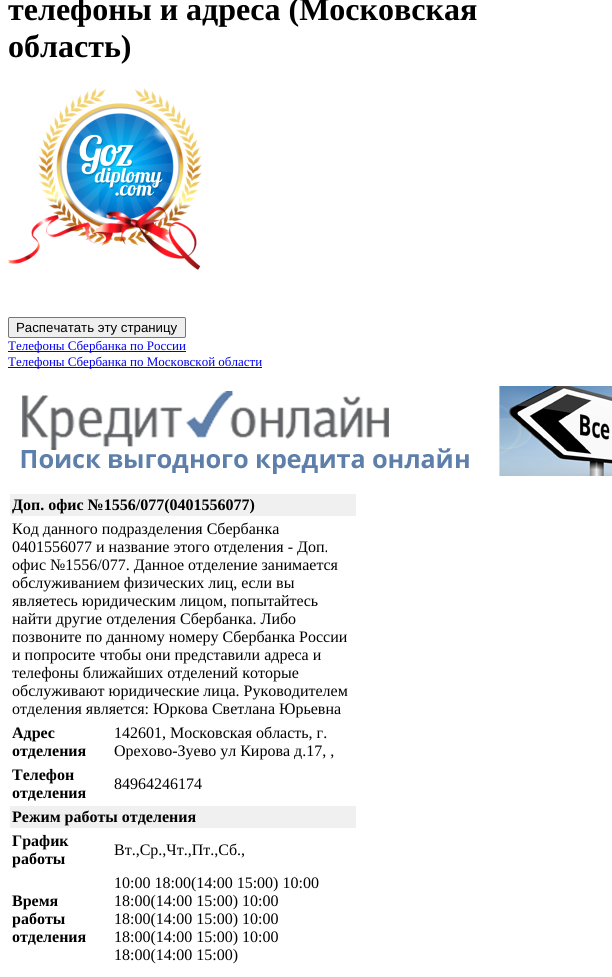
import math
import cairo


def use_color(cr, r, g, b):
  cr.set_source_rgb(r / 255, g / 255, b / 255)

def text(cr, x, y, s, family, size, color, bold=False, italic=False):
  cr.select_font_face(family, cairo.FONT_SLANT_ITALIC if italic else cairo.FONT_SLANT_NORMAL, cairo.FONT_WEIGHT_BOLD if bold else cairo.FONT_WEIGHT_NORMAL)
  cr.set_font_size(size)
  use_color(cr, *color)
  cr.move_to(x, y)
  cr.show_text(s)

def box(cr, x, y, w, h, *color):
  use_color(cr, *color)
  cr.rectangle(x, y, w, h)
  cr.fill()

def round_rect(cr, x, y, w, h, r):
  cr.new_sub_path()
  for i, (u, v) in enumerate([(x + w - r, y + h - r), (x + r, y + h - r), (x + r, y + r), (x + w - r, y + r)]):
    cr.arc(u, v, r, i * math.pi / 2, (i + 1) * math.pi / 2)
  cr.close_path()

def picture(cr, path, x, y, w, h):
  cr.save()
  cr.set_source_surface(cairo.ImageSurface.create_from_png(path), x, y)
  cr.rectangle(x, y, w, h)
  cr.fill()
  cr.restore()

def draw(cr):
  use_color(cr, 255, 255, 255)
  cr.paint()
  picture(cr, "img_01.png", 8, 88, 194, 182)
  use_color(cr, 239, 239, 239)
  round_rect(cr, 8.5, 317.5, 177, 20, 1.5)
  cr.fill_preserve()
  use_color(cr, 118, 118, 118)
  cr.set_line_width(1)
  cr.stroke()
  box(cr, 8, 351, 178, 1, 0, 0, 238)
  box(cr, 8, 367, 254, 1, 0, 0, 238)
  picture(cr, "img_02.png", 21, 386, 591, 90)
  box(cr, 10, 494, 346, 22, 240, 240, 240)
  box(cr, 10, 806, 346, 22, 240, 240, 240)
  text(cr, 8, 20, "телефоны и адреса (Московская", "Liberation Serif", 32, (0, 0, 0), bold=True)
  text(cr, 8, 57, "область)", "Liberation Serif", 32, (0, 0, 0), bold=True)
  text(cr, 16, 332, "Распечатать эту страницу", "Liberation Sans", 13.25, (0, 0, 0))
  text(cr, 8, 350, "Телефоны Сбербанка по России", "Liberation Serif", 13, (0, 0, 238))
  text(cr, 8, 366, "Телефоны Сбербанка по Московской области", "Liberation Serif", 13, (0, 0, 238))
  text(cr, 12, 510, "Доп. офис №1556/077(0401556077)", "Liberation Serif", 16, (0, 0, 0), bold=True)
  text(cr, 12, 534, "Код данного подразделения Сбербанка", "Liberation Serif", 16, (0, 0, 0))
  text(cr, 12, 552, "0401556077 и название этого отделения - Доп.", "Liberation Serif", 16, (0, 0, 0))
  text(cr, 12, 570, "офис №1556/077. Данное отделение занимается", "Liberation Serif", 16, (0, 0, 0))
  text(cr, 12, 588, "обслуживанием физических лиц, если вы", "Liberation Serif", 16, (0, 0, 0))
  text(cr, 12, 606, "являетесь юридическим лицом, попытайтесь", "Liberation Serif", 16, (0, 0, 0))
  text(cr, 12, 624, "найти другие отделения Сбербанка. Либо", "Liberation Serif", 16, (0, 0, 0))
  text(cr, 12, 642, "позвоните по данному номеру Сбербанка России", "Liberation Serif", 16, (0, 0, 0))
  text(cr, 12, 660, "и попросите чтобы они представили адреса и", "Liberation Serif", 16, (0, 0, 0))
  text(cr, 12, 678, "телефоны ближайших отделений которые", "Liberation Serif", 16, (0, 0, 0))
  text(cr, 12, 696, "обслуживают юридические лица. Руководителем", "Liberation Serif", 16, (0, 0, 0))
  text(cr, 12, 714, "отделения является: Юркова Светлана Юрьевна", "Liberation Serif", 16, (0, 0, 0))
  text(cr, 12, 738, "Адрес", "Liberation Serif", 16, (0, 0, 0), bold=True)
  text(cr, 12, 756, "отделения", "Liberation Serif", 16, (0, 0, 0), bold=True)
  text(cr, 114, 738, "142601, Московская область, г.", "Liberation Serif", 16, (0, 0, 0))
  text(cr, 114, 756, "Орехово-Зуево ул Кирова д.17, ,", "Liberation Serif", 16, (0, 0, 0))
  text(cr, 12, 780, "Телефон", "Liberation Serif", 16, (0, 0, 0), bold=True)
  text(cr, 12, 798, "отделения", "Liberation Serif", 16, (0, 0, 0), bold=True)
  text(cr, 114, 789, "84964246174", "Liberation Serif", 16, (0, 0, 0))
  text(cr, 12, 822, "Режим работы отделения", "Liberation Serif", 16, (0, 0, 0), bold=True)
  text(cr, 12, 846, "График", "Liberation Serif", 16, (0, 0, 0), bold=True)
  text(cr, 12, 864, "работы", "Liberation Serif", 16, (0, 0, 0), bold=True)
  text(cr, 114, 855, "Вт.,Ср.,Чт.,Пт.,Сб.,", "Liberation Serif", 16, (0, 0, 0))
  text(cr, 12, 906, "Время", "Liberation Serif", 16, (0, 0, 0), bold=True)
  text(cr, 12, 924, "работы", "Liberation Serif", 16, (0, 0, 0), bold=True)
  text(cr, 12, 942, "отделения", "Liberation Serif", 16, (0, 0, 0), bold=True)
  text(cr, 114, 888, "10:00 18:00(14:00 15:00) 10:00", "Liberation Serif", 16, (0, 0, 0))
  text(cr, 114, 906, "18:00(14:00 15:00) 10:00", "Liberation Serif", 16, (0, 0, 0))
  text(cr, 114, 924, "18:00(14:00 15:00) 10:00", "Liberation Serif", 16, (0, 0, 0))
  text(cr, 114, 942, "18:00(14:00 15:00) 10:00", "Liberation Serif", 16, (0, 0, 0))
  text(cr, 114, 960, "18:00(14:00 15:00)", "Liberation Serif", 16, (0, 0, 0))


surface = cairo.ImageSurface(cairo.FORMAT_RGB24, 612, 977)
cr = cairo.Context(surface)
options = cairo.FontOptions()
options.set_hint_metrics(cairo.HINT_METRICS_OFF)
options.set_hint_style(cairo.HINT_STYLE_NONE)
cr.set_font_options(options)
cr.set_miter_limit(4)
draw(cr)
surface.write_to_png("out.png")
